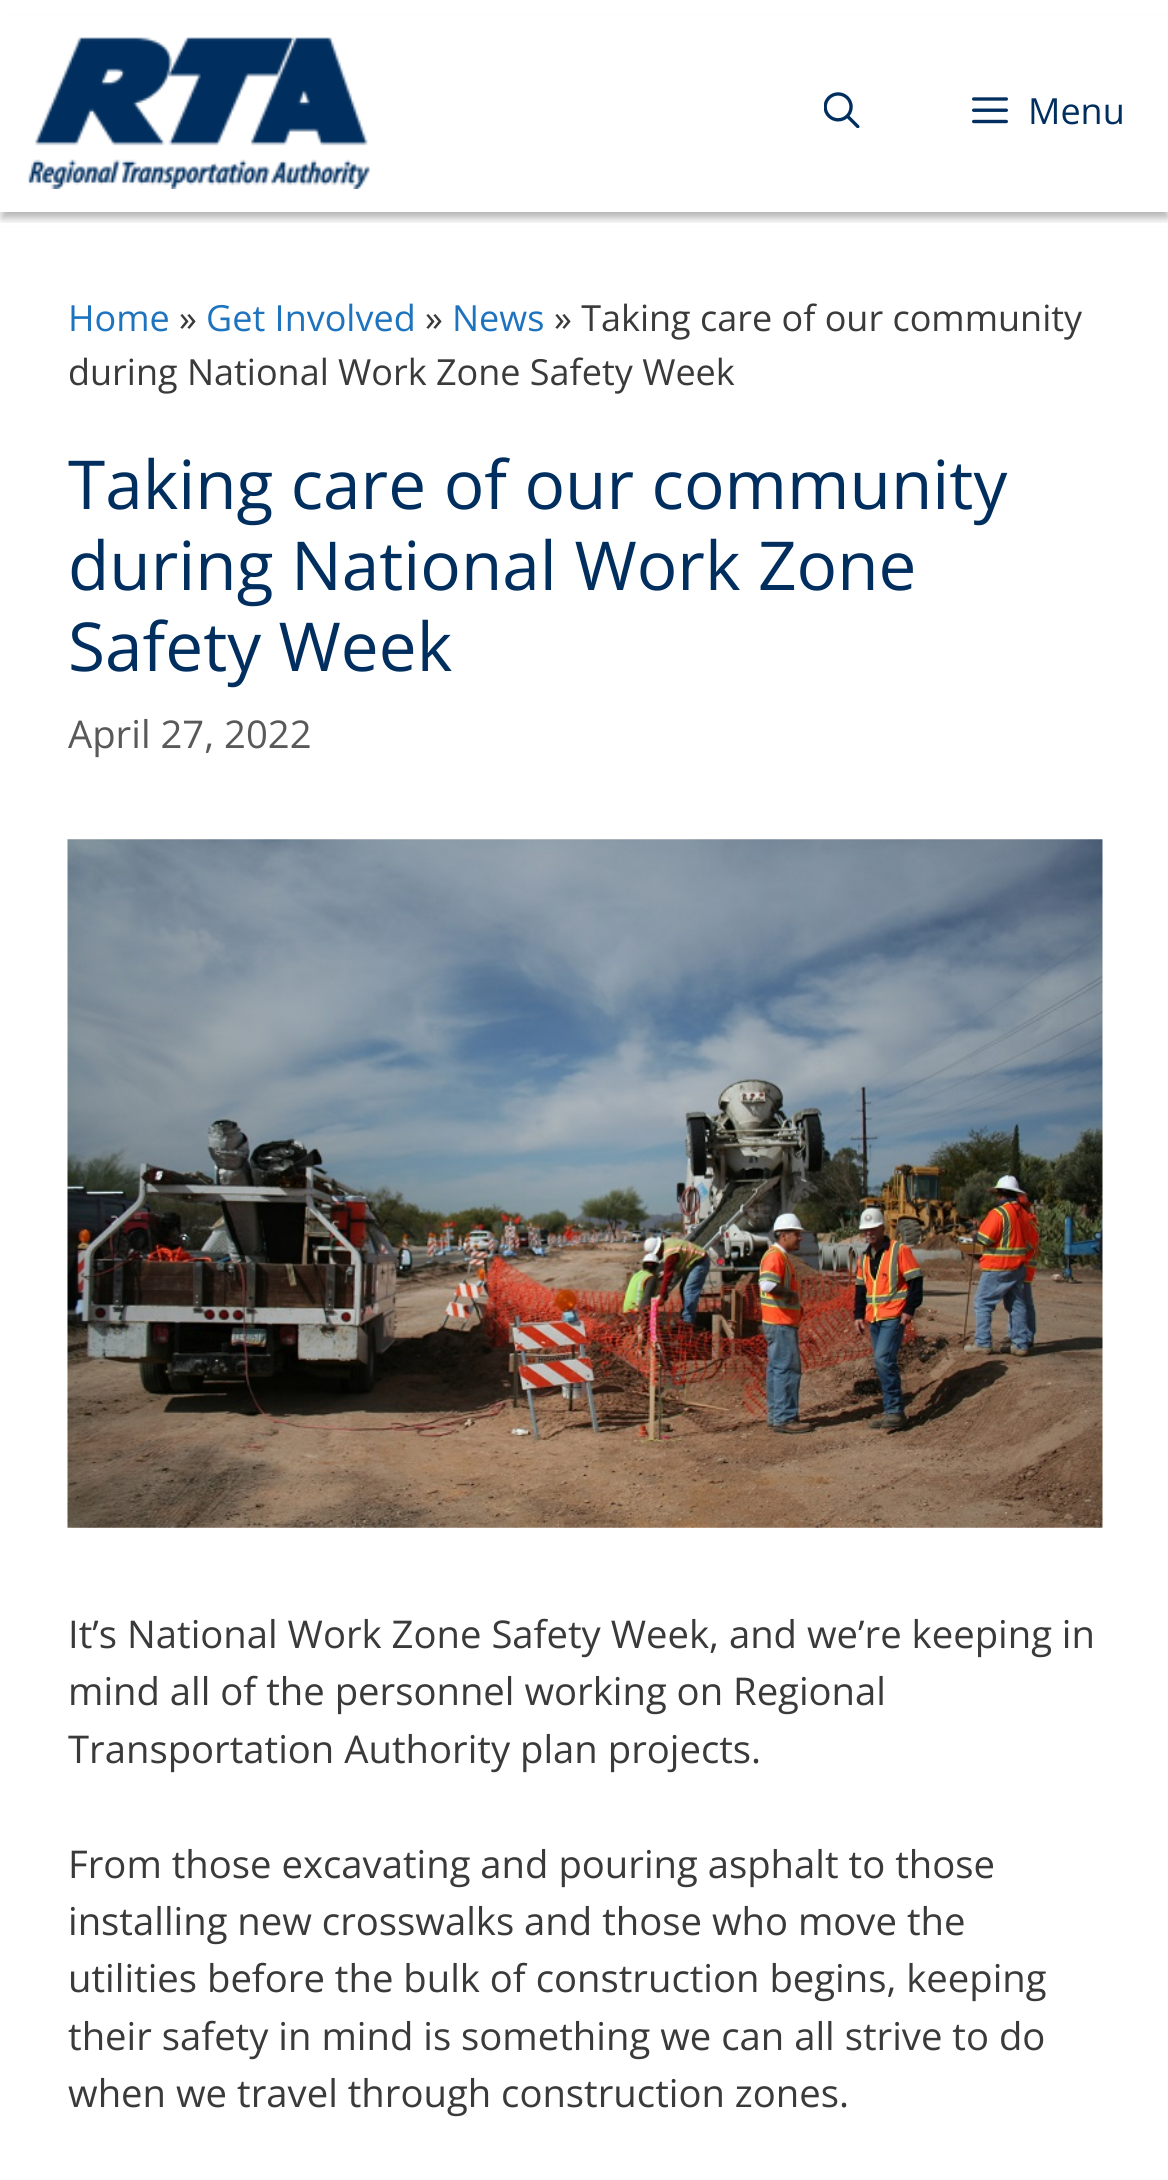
import math
import cairo


def use_color(cr, r, g, b):
  cr.set_source_rgb(r / 255, g / 255, b / 255)

def text(cr, x, y, s, family, size, color, bold=False, italic=False):
  cr.select_font_face(family, cairo.FONT_SLANT_ITALIC if italic else cairo.FONT_SLANT_NORMAL, cairo.FONT_WEIGHT_BOLD if bold else cairo.FONT_WEIGHT_NORMAL)
  cr.set_font_size(size)
  use_color(cr, *color)
  cr.move_to(x, y)
  cr.show_text(s)

def box(cr, x, y, w, h, *color):
  use_color(cr, *color)
  cr.rectangle(x, y, w, h)
  cr.fill()

def round_rect(cr, x, y, w, h, r):
  cr.new_sub_path()
  for i, (u, v) in enumerate([(x + w - r, y + h - r), (x + r, y + h - r), (x + r, y + r), (x + w - r, y + r)]):
    cr.arc(u, v, r, i * math.pi / 2, (i + 1) * math.pi / 2)
  cr.close_path()

def shadow(cr, x, y, w, h, r, blur, alpha):
  cr.push_group_with_content(cairo.CONTENT_ALPHA)
  cr.set_operator(cairo.OPERATOR_SOURCE)
  for i in range(15, -16, -2):
    e = blur * i / 6
    if min(w, h) + 2 * e > 0:
      cr.set_source_rgba(0, 0, 0, alpha * math.erfc((i - 1) / 8.5) / 2)
      round_rect(cr, x - e, y - e, w + 2 * e, h + 2 * e, max(0, min(r + e + blur * .6, min(w, h) / 2 + e)))
      cr.fill()
  cr.mask(cr.pop_group())

def picture(cr, path, x, y, w, h):
  cr.save()
  cr.set_source_surface(cairo.ImageSurface.create_from_png(path), x, y)
  cr.rectangle(x, y, w, h)
  cr.fill()
  cr.restore()

def draw(cr):
  use_color(cr, 255, 255, 255)
  cr.paint()
  use_color(cr, 0, 0, 0)
  shadow(cr, 2, 23, 1166, 195, 0, 4.5, 0.3)
  box(cr, 0, 15, 1168, 197, 255, 255, 255)
  picture(cr, "img_01.png", 28, 37, 342, 152)
  picture(cr, "img_02.png", 824, 92, 36, 36)
  picture(cr, "img_03.png", 972, 97, 36, 27)
  box(cr, 0, 223, 1168, 3, 255, 255, 255)
  picture(cr, "img_04.png", 67, 839, 1036, 689)
  text(cr, 1028, 124, "Menu", "Open Sans", 36, (0, 47, 95))
  text(cr, 68, 331, "Home", "Open Sans", 36, (30, 115, 190))
  text(cr, 179, 331, "»", "Open Sans", 36, (58, 58, 58))
  text(cr, 206, 331, "Get Involved", "Open Sans", 36, (30, 115, 190))
  text(cr, 425, 331, "»", "Open Sans", 36, (58, 58, 58))
  text(cr, 452, 331, "News", "Open Sans", 36, (30, 115, 190))
  text(cr, 554, 331, "» Taking care of our community", "Open Sans", 36, (58, 58, 58))
  text(cr, 68, 385, "during National Work Zone Safety Week", "Open Sans", 36, (58, 58, 58))
  text(cr, 68, 509, "Taking care of our community", "Open Sans", 67.5, (0, 47, 95))
  text(cr, 68, 590, "during National Work Zone", "Open Sans", 67.5, (0, 47, 95))
  text(cr, 68, 671, "Safety Week", "Open Sans", 67.5, (0, 47, 95))
  text(cr, 68, 748, "April 27, 2022", "Open Sans", 38.25, (89, 89, 89))
  text(cr, 68, 1648, "It’s National Work Zone Safety Week, and we’re keeping in", "Open Sans", 38.25, (58, 58, 58))
  text(cr, 68, 1705, "mind all of the personnel working on Regional", "Open Sans", 38.25, (58, 58, 58))
  text(cr, 68, 1763, "Transportation Authority plan projects.", "Open Sans", 38.25, (58, 58, 58))
  text(cr, 68, 1878, "From those excavating and pouring asphalt to those", "Open Sans", 38.25, (58, 58, 58))
  text(cr, 68, 1935, "installing new crosswalks and those who move the", "Open Sans", 38.25, (58, 58, 58))
  text(cr, 68, 1992, "utilities before the bulk of construction begins, keeping", "Open Sans", 38.25, (58, 58, 58))
  text(cr, 68, 2050, "their safety in mind is something we can all strive to do", "Open Sans", 38.25, (58, 58, 58))
  text(cr, 68, 2107, "when we travel through construction zones.", "Open Sans", 38.25, (58, 58, 58))


surface = cairo.ImageSurface(cairo.FORMAT_RGB24, 1168, 2180)
cr = cairo.Context(surface)
options = cairo.FontOptions()
options.set_hint_metrics(cairo.HINT_METRICS_OFF)
options.set_hint_style(cairo.HINT_STYLE_NONE)
cr.set_font_options(options)
cr.set_miter_limit(4)
draw(cr)
surface.write_to_png("out.png")
